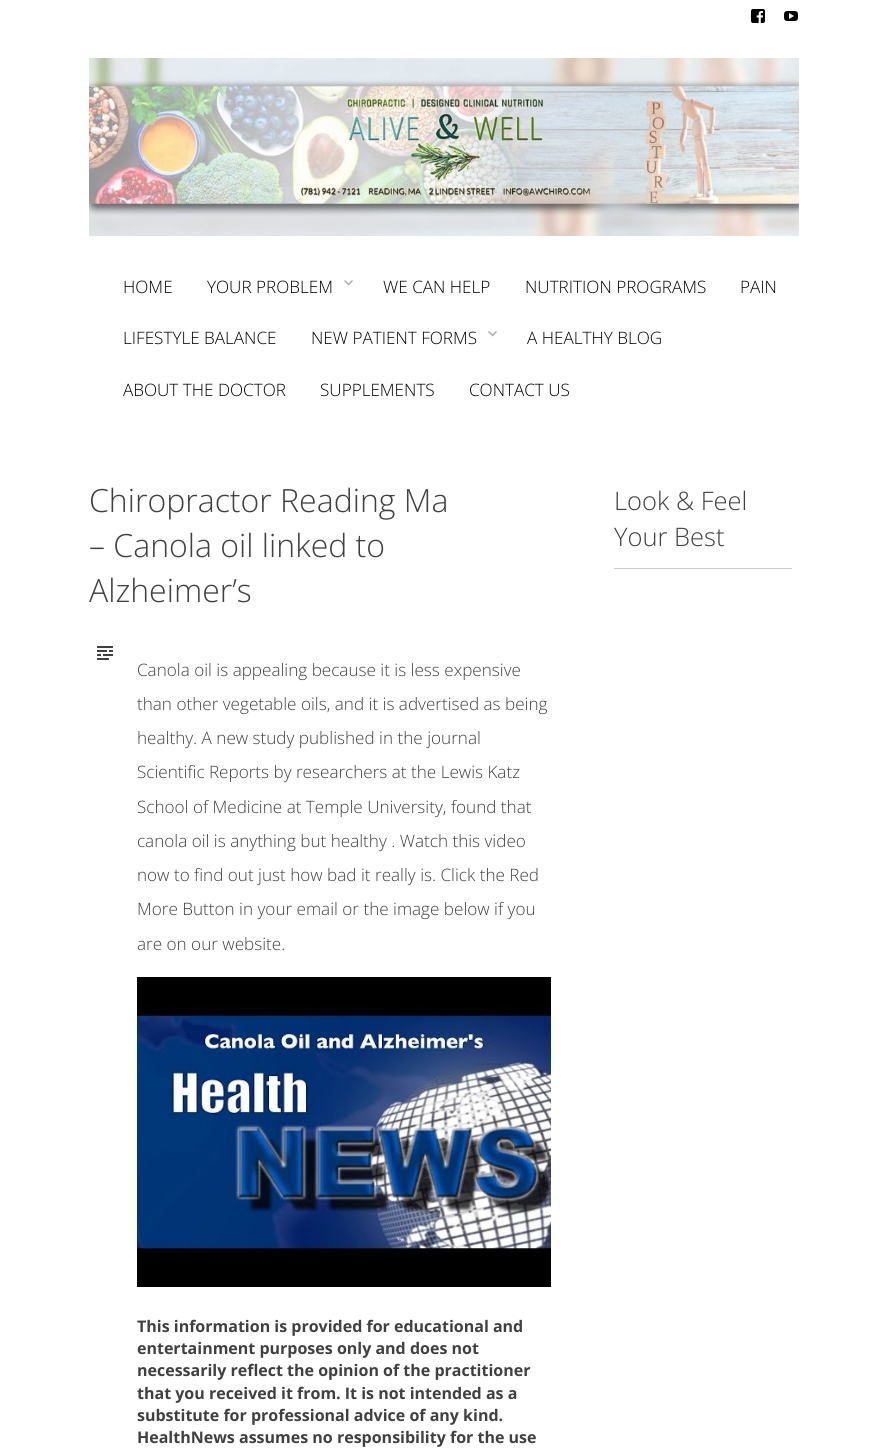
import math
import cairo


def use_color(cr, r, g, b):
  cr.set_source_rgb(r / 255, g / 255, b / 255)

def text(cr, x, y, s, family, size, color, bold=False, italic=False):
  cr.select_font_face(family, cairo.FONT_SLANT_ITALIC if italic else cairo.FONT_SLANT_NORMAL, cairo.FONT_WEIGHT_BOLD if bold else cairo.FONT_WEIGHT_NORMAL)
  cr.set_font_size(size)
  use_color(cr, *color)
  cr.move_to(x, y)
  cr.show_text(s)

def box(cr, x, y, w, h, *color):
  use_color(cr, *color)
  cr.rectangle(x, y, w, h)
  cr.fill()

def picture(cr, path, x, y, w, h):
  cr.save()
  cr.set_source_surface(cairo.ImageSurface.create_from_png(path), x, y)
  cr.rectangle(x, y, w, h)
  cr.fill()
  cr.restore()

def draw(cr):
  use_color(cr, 255, 255, 255)
  cr.paint()
  picture(cr, "img_01.png", 751, 9, 14, 14)
  picture(cr, "img_02.png", 784, 11, 14, 10)
  picture(cr, "img_03.png", 89, 58, 710, 178)
  picture(cr, "img_04.png", 344, 280, 9, 6)
  picture(cr, "img_04.png", 488, 331, 9, 6)
  picture(cr, "img_05.png", 97, 646, 16, 14)
  picture(cr, "img_06.png", 137, 977, 414, 310)
  box(cr, 614, 568, 178, 1, 204, 204, 204)
  text(cr, 123, 293, "HOME", "Open Sans Light", 17.1, (0, 0, 0))
  text(cr, 207, 293, "YOUR PROBLEM", "Open Sans Light", 17.1, (0, 0, 0))
  text(cr, 383, 293, "WE CAN HELP", "Open Sans Light", 17.1, (0, 0, 0))
  text(cr, 525, 293, "NUTRITION PROGRAMS", "Open Sans Light", 17.1, (0, 0, 0))
  text(cr, 740, 293, "PAIN", "Open Sans Light", 17.1, (0, 0, 0))
  text(cr, 123, 344, "LIFESTYLE BALANCE", "Open Sans Light", 17.1, (0, 0, 0))
  text(cr, 311, 344, "NEW PATIENT FORMS", "Open Sans Light", 17.1, (0, 0, 0))
  text(cr, 527, 344, "A HEALTHY BLOG", "Open Sans Light", 17.1, (0, 0, 0))
  text(cr, 123, 396, "ABOUT THE DOCTOR", "Open Sans Light", 17.1, (0, 0, 0))
  text(cr, 320, 396, "SUPPLEMENTS", "Open Sans Light", 17.1, (0, 0, 0))
  text(cr, 469, 396, "CONTACT US", "Open Sans Light", 17.1, (0, 0, 0))
  text(cr, 89, 512, "Chiropractor Reading Ma", "Open Sans Light", 32, (64, 64, 64))
  text(cr, 89, 557, "– Canola oil linked to", "Open Sans Light", 32, (64, 64, 64))
  text(cr, 89, 602, "Alzheimer’s", "Open Sans Light", 32, (64, 64, 64))
  text(cr, 137, 676, "Canola oil is appealing because it is less expensive", "Open Sans Light", 17.1, (64, 64, 64))
  text(cr, 137, 710, "than other vegetable oils, and it is advertised as being", "Open Sans Light", 17.1, (64, 64, 64))
  text(cr, 137, 744, "healthy. A new study published in the journal", "Open Sans Light", 17.1, (64, 64, 64))
  text(cr, 137, 778, "Scientific Reports by researchers at the Lewis Katz", "Open Sans Light", 17.1, (64, 64, 64))
  text(cr, 137, 813, "School of Medicine at Temple University, found that", "Open Sans Light", 17.1, (64, 64, 64))
  text(cr, 137, 847, "canola oil is anything but healthy . Watch this video", "Open Sans Light", 17.1, (64, 64, 64))
  text(cr, 137, 881, "now to find out just how bad it really is. Click the Red", "Open Sans Light", 17.1, (64, 64, 64))
  text(cr, 137, 915, "More Button in your email or the image below if you", "Open Sans Light", 17.1, (64, 64, 64))
  text(cr, 137, 950, "are on our website.", "Open Sans Light", 17.1, (64, 64, 64))
  text(cr, 137, 1332, "This information is provided for educational and", "Open Sans", 16, (64, 64, 64), bold=True)
  text(cr, 137, 1354, "entertainment purposes only and does not", "Open Sans", 16, (64, 64, 64), bold=True)
  text(cr, 137, 1376, "necessarily reflect the opinion of the practitioner", "Open Sans", 16, (64, 64, 64), bold=True)
  text(cr, 137, 1399, "that you received it from. It is not intended as a", "Open Sans", 16, (64, 64, 64), bold=True)
  text(cr, 137, 1421, "substitute for professional advice of any kind.", "Open Sans", 16, (64, 64, 64), bold=True)
  text(cr, 137, 1443, "HealthNews assumes no responsibility for the use", "Open Sans", 16, (64, 64, 64), bold=True)
  text(cr, 614, 510, "Look & Feel", "Open Sans Light", 25.5, (64, 64, 64))
  text(cr, 614, 546, "Your Best", "Open Sans Light", 25.5, (64, 64, 64))


surface = cairo.ImageSurface(cairo.FORMAT_RGB24, 888, 1449)
cr = cairo.Context(surface)
options = cairo.FontOptions()
options.set_hint_metrics(cairo.HINT_METRICS_OFF)
options.set_hint_style(cairo.HINT_STYLE_NONE)
cr.set_font_options(options)
cr.set_miter_limit(4)
draw(cr)
surface.write_to_png("out.png")
